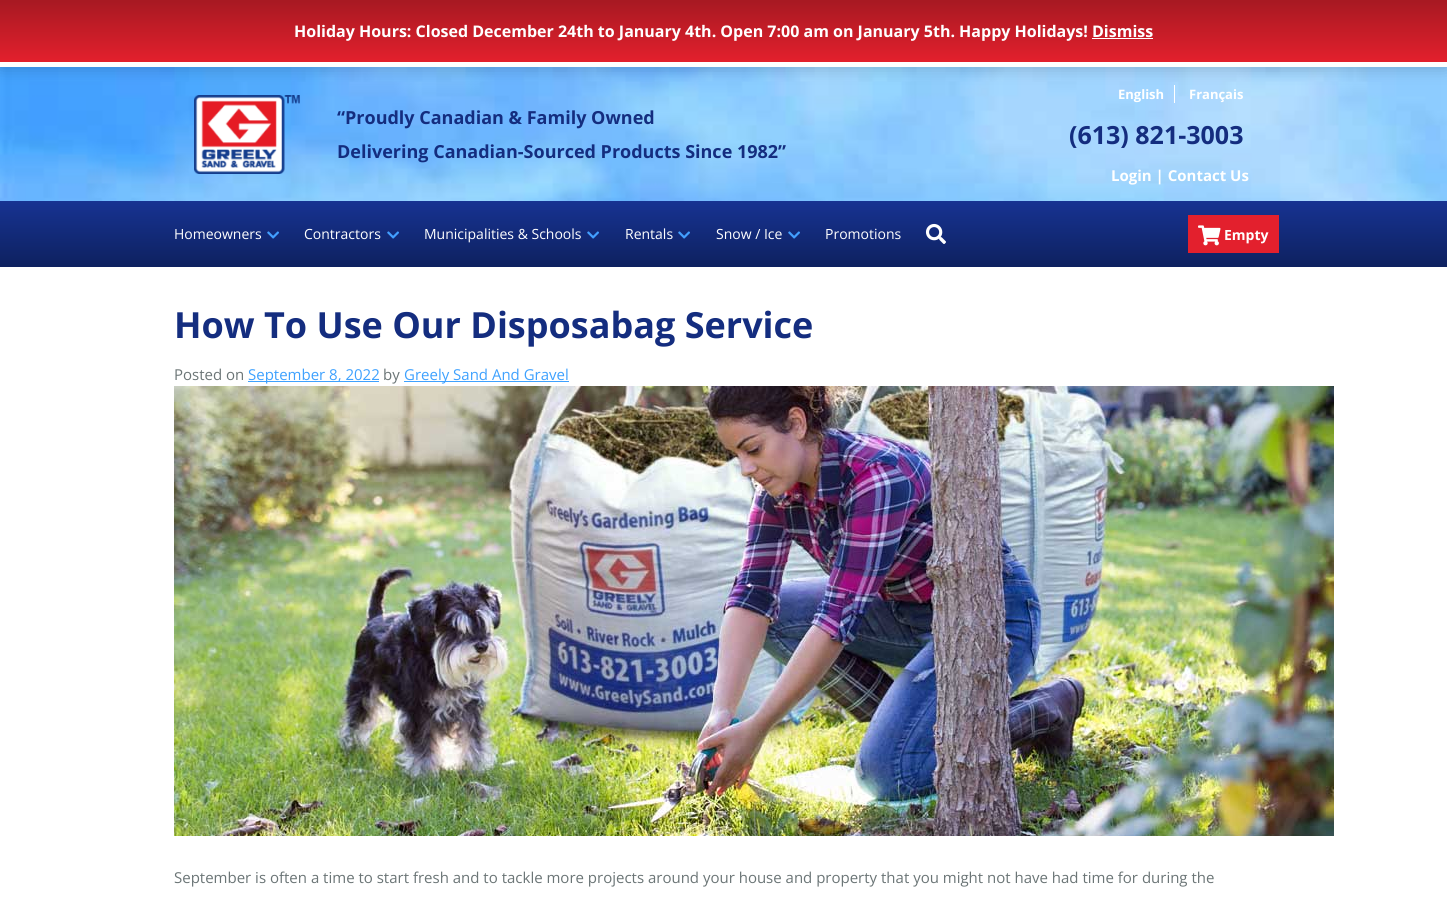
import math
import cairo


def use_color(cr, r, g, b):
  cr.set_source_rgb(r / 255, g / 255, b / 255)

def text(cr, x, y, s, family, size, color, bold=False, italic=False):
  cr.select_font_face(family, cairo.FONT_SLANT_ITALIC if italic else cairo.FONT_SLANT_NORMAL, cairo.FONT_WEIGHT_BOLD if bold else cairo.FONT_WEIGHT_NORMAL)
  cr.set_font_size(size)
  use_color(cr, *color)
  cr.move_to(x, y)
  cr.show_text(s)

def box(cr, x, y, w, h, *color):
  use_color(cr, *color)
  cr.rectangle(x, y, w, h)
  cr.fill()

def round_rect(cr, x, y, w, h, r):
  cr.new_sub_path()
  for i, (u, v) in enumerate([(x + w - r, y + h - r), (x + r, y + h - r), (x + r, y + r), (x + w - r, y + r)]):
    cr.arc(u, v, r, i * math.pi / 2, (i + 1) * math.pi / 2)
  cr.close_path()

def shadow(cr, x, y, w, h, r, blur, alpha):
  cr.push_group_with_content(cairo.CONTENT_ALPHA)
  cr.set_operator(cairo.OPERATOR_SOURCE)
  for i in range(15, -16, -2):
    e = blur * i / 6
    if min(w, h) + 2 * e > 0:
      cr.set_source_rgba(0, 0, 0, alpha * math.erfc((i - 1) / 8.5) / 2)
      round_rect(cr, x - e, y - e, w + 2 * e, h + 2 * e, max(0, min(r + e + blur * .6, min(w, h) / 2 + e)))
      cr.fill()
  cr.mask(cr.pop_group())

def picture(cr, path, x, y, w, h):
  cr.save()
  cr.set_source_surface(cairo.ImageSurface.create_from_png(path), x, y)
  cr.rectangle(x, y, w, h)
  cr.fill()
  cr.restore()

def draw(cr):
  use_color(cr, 255, 255, 255)
  cr.paint()
  picture(cr, "img_01.png", 0, 67, 1447, 134)
  box(cr, 1174, 85, 1, 18, 255, 255, 255)
  use_color(cr, 0, 0, 0)
  shadow(cr, 0, 1, 1447, 67, 0, 8, 0.2)
  gradient = cairo.LinearGradient(724, 0, 724, 62)
  gradient.add_color_stop_rgba(0, 0.655, 0.098, 0.133, 1)
  gradient.add_color_stop_rgba(1, 0.89, 0.125, 0.176, 1)
  cr.set_source(gradient)
  cr.rectangle(0, 0, 1447, 62)
  cr.fill()
  box(cr, 0, 62, 1447, 5, 255, 255, 255)
  box(cr, 1092, 38, 61, 1, 255, 255, 255)
  picture(cr, "img_02.png", 194, 95, 106, 79)
  gradient = cairo.LinearGradient(724, 201, 724, 267)
  gradient.add_color_stop_rgba(0, 0.09, 0.2, 0.573, 1)
  gradient.add_color_stop_rgba(1, 0.055, 0.129, 0.373, 1)
  cr.set_source(gradient)
  cr.rectangle(0, 201, 1447, 66)
  cr.fill()
  picture(cr, "img_03.png", 267, 231, 12, 8)
  picture(cr, "img_03.png", 387, 231, 12, 8)
  picture(cr, "img_03.png", 587, 231, 12, 8)
  picture(cr, "img_03.png", 678, 231, 12, 8)
  picture(cr, "img_03.png", 788, 231, 12, 8)
  picture(cr, "img_04.png", 925, 223, 21, 21)
  box(cr, 1188, 215, 91, 38, 227, 32, 45)
  picture(cr, "img_05.png", 1198, 225, 23, 21)
  box(cr, 248, 381, 131, 1, 62, 161, 254)
  box(cr, 404, 381, 165, 1, 62, 161, 254)
  picture(cr, "img_06.png", 174, 386, 1160, 450)
  text(cr, 294, 37, "Holiday Hours: Closed December 24th to January 4th. Open 7:00 am on January 5th. Happy Holidays! Dismiss", "Open Sans", 16, (255, 255, 255), bold=True)
  text(cr, 337, 124, "“Proudly Canadian & Family Owned", "Open Sans", 18, (20, 45, 127), bold=True)
  text(cr, 337, 158, "Delivering Canadian-Sourced Products Since 1982”", "Open Sans", 18, (20, 45, 127), bold=True)
  text(cr, 1118, 99, "English", "Open Sans", 13, (255, 255, 255), bold=True)
  text(cr, 1189, 99, "Français", "Open Sans", 13, (255, 255, 255), bold=True)
  text(cr, 1069, 144, "(613) 821-3003", "Open Sans", 25, (20, 45, 127), bold=True)
  text(cr, 1111, 181, "Login | Contact Us", "Open Sans", 15, (255, 255, 255), bold=True)
  text(cr, 174, 239, "Homeowners", "Open Sans", 14, (255, 255, 255))
  text(cr, 304, 239, "Contractors", "Open Sans", 14, (255, 255, 255))
  text(cr, 424, 239, "Municipalities & Schools", "Open Sans", 14, (255, 255, 255))
  text(cr, 625, 239, "Rentals", "Open Sans", 14, (255, 255, 255))
  text(cr, 716, 239, "Snow / Ice", "Open Sans", 14, (255, 255, 255))
  text(cr, 825, 239, "Promotions", "Open Sans", 14, (255, 255, 255))
  text(cr, 1224, 240, "Empty", "Open Sans", 14, (255, 255, 255), bold=True)
  text(cr, 174, 338, "How To Use Our Disposabag Service", "Open Sans", 36, (20, 45, 127), bold=True)
  text(cr, 174, 380, "Posted on", "Open Sans", 15, (107, 117, 118))
  text(cr, 248, 380, "September 8, 2022", "Open Sans", 15, (62, 161, 254))
  text(cr, 383, 380, "by", "Open Sans", 15, (107, 117, 118))
  text(cr, 404, 380, "Greely Sand And Gravel", "Open Sans", 15, (62, 161, 254))
  text(cr, 174, 883, "September is often a time to start fresh and to tackle more projects around your house and property that you might not have had time for during the", "Open Sans", 15, (107, 117, 118))


surface = cairo.ImageSurface(cairo.FORMAT_RGB24, 1447, 897)
cr = cairo.Context(surface)
options = cairo.FontOptions()
options.set_hint_metrics(cairo.HINT_METRICS_OFF)
options.set_hint_style(cairo.HINT_STYLE_NONE)
cr.set_font_options(options)
cr.set_miter_limit(4)
draw(cr)
surface.write_to_png("out.png")
